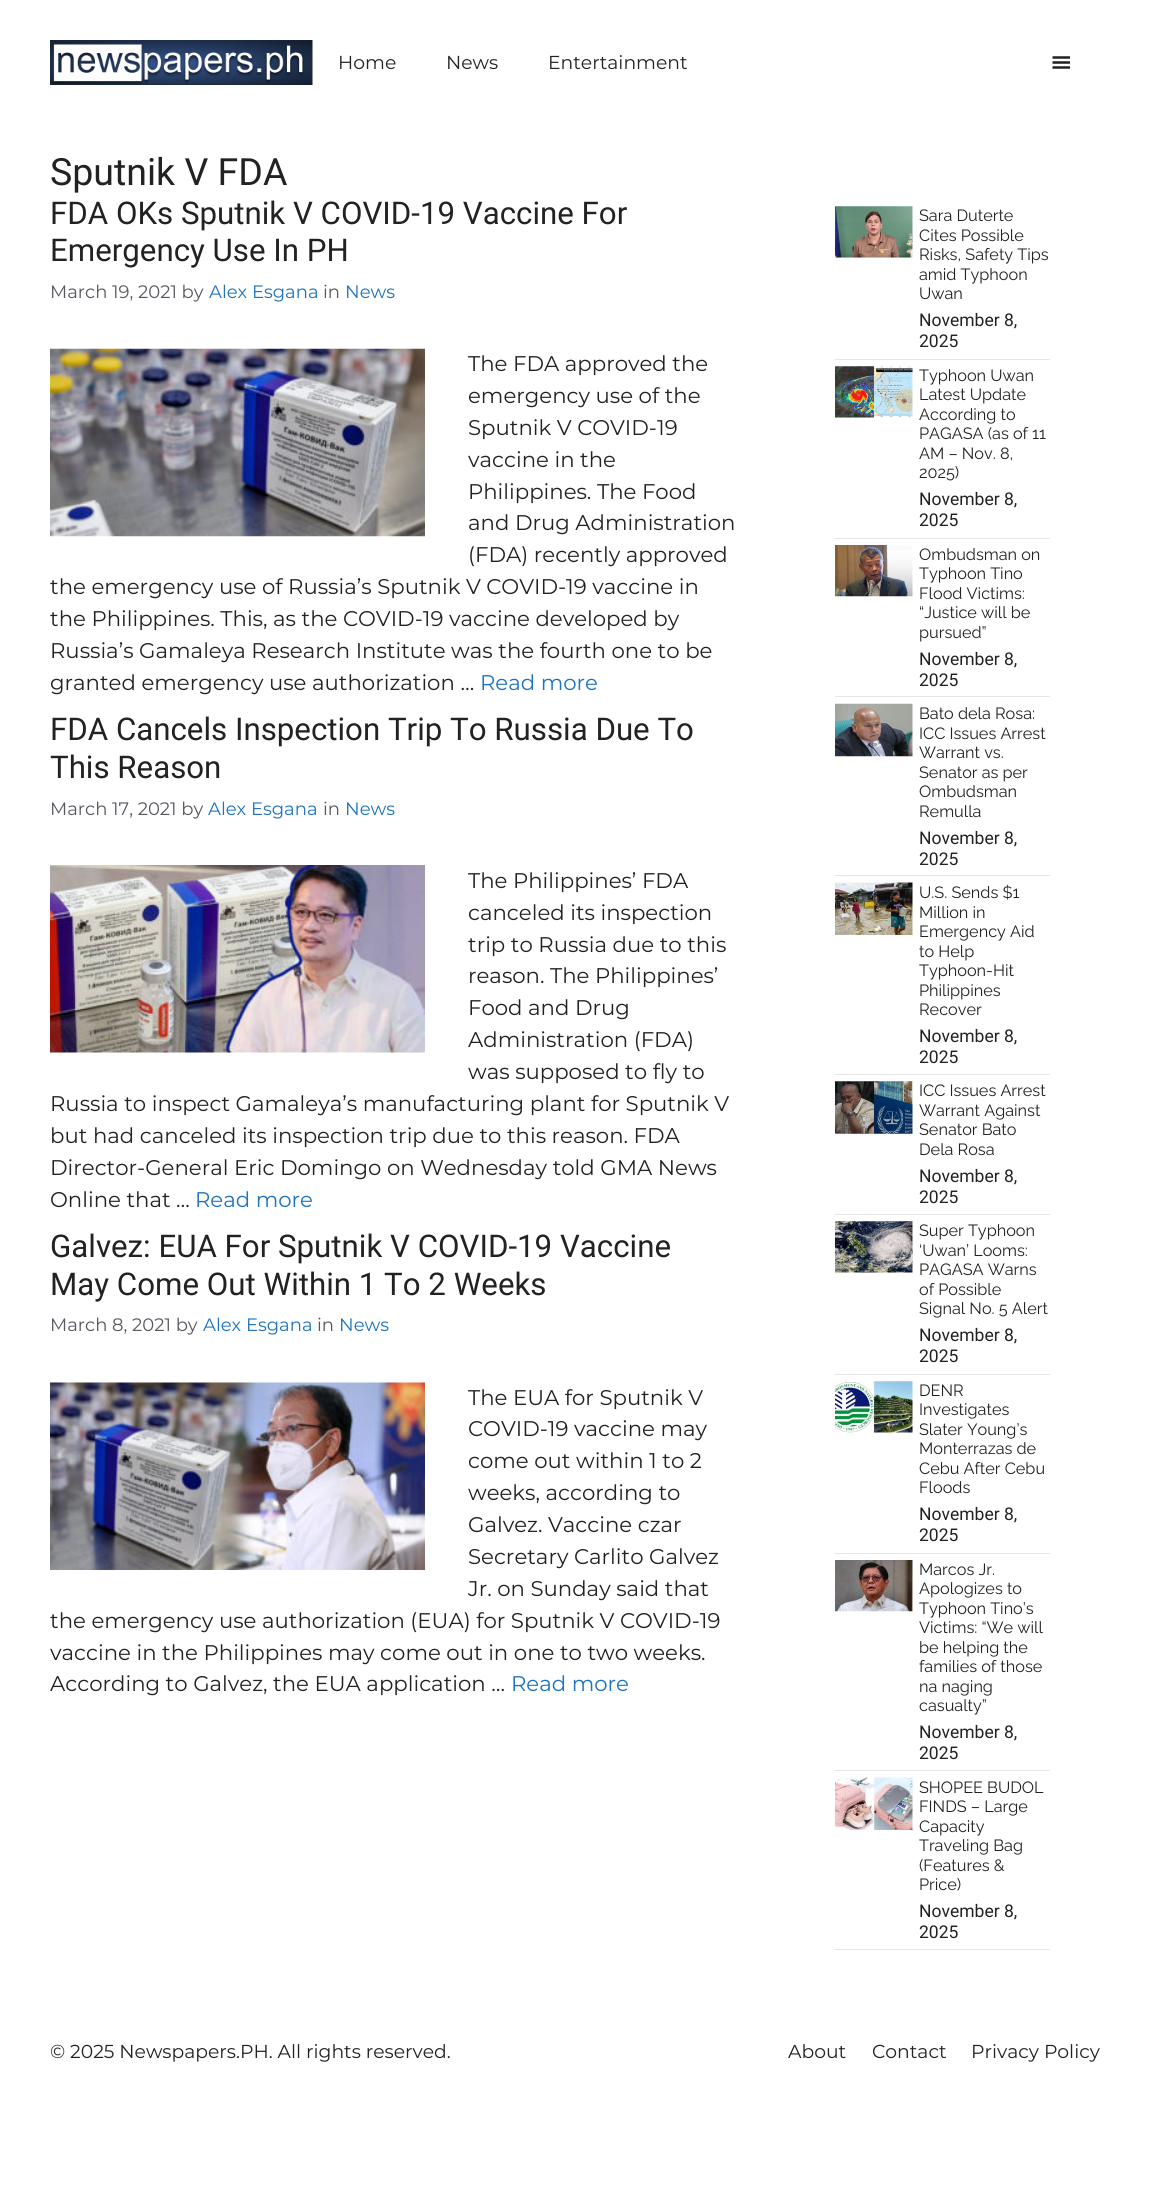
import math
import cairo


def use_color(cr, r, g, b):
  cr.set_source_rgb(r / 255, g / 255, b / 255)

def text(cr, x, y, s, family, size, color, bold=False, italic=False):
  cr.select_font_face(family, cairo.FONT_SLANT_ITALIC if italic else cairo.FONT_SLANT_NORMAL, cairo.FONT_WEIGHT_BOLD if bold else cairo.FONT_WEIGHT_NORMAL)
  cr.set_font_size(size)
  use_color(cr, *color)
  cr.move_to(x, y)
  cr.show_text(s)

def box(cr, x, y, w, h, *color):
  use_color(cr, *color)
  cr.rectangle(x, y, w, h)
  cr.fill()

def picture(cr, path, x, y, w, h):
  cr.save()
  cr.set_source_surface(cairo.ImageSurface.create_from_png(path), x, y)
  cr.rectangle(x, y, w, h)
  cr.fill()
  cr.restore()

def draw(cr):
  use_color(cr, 255, 255, 255)
  cr.paint()
  picture(cr, "img_01.png", 50, 40, 263, 45)
  picture(cr, "img_02.png", 1052, 56, 18, 13)
  picture(cr, "img_03.png", 50, 348, 375, 189)
  picture(cr, "img_04.png", 50, 865, 375, 188)
  picture(cr, "img_05.png", 50, 1382, 375, 188)
  box(cr, 835, 359, 215, 1, 230, 230, 230)
  picture(cr, "img_06.png", 835, 206, 78, 52)
  box(cr, 835, 538, 215, 1, 230, 230, 230)
  picture(cr, "img_07.png", 835, 366, 78, 52)
  box(cr, 835, 696, 215, 1, 230, 230, 230)
  picture(cr, "img_08.png", 835, 545, 78, 52)
  box(cr, 835, 875, 215, 1, 230, 230, 230)
  picture(cr, "img_09.png", 835, 703, 78, 54)
  box(cr, 835, 1074, 215, 1, 230, 230, 230)
  picture(cr, "img_10.png", 835, 882, 78, 53)
  box(cr, 835, 1214, 215, 1, 230, 230, 230)
  picture(cr, "img_11.png", 835, 1081, 78, 53)
  box(cr, 835, 1374, 215, 1, 230, 230, 230)
  picture(cr, "img_12.png", 835, 1221, 78, 52)
  box(cr, 835, 1553, 215, 1, 230, 230, 230)
  picture(cr, "img_13.png", 835, 1381, 78, 52)
  box(cr, 835, 1770, 215, 1, 230, 230, 230)
  picture(cr, "img_14.png", 835, 1560, 78, 52)
  box(cr, 835, 1949, 215, 1, 230, 230, 230)
  picture(cr, "img_15.png", 835, 1777, 78, 53)
  text(cr, 338, 69, "Home", "Montserrat", 18.75, (34, 34, 34))
  text(cr, 446, 69, "News", "Montserrat", 18.75, (34, 34, 34))
  text(cr, 548, 69, "Entertainment", "Montserrat", 18.75, (34, 34, 34))
  text(cr, 50, 185, "Sputnik V FDA", "Roboto", 37.5, (34, 34, 34))
  text(cr, 50, 224, "FDA OKs Sputnik V COVID-19 Vaccine For", "Roboto", 31.25, (34, 34, 34))
  text(cr, 50, 261, "Emergency Use In PH", "Roboto", 31.25, (34, 34, 34))
  text(cr, 50, 298, "March 19, 2021 by", "Montserrat", 18, (87, 87, 96))
  text(cr, 209, 298, "Alex Esgana", "Montserrat", 18, (30, 115, 190))
  text(cr, 323, 298, "in", "Montserrat", 18, (87, 87, 96))
  text(cr, 345, 298, "News", "Montserrat", 18, (30, 115, 190))
  text(cr, 468, 371, "The FDA approved the", "Montserrat", 21.25, (34, 34, 34))
  text(cr, 468, 403, "emergency use of the", "Montserrat", 21.25, (34, 34, 34))
  text(cr, 468, 435, "Sputnik V COVID-19", "Montserrat", 21.25, (34, 34, 34))
  text(cr, 468, 467, "vaccine in the", "Montserrat", 21.25, (34, 34, 34))
  text(cr, 468, 499, "Philippines. The Food", "Montserrat", 21.25, (34, 34, 34))
  text(cr, 468, 530, "and Drug Administration", "Montserrat", 21.25, (34, 34, 34))
  text(cr, 468, 562, "(FDA) recently approved", "Montserrat", 21.25, (34, 34, 34))
  text(cr, 50, 594, "the emergency use of Russia’s Sputnik V COVID-19 vaccine in", "Montserrat", 21.25, (34, 34, 34))
  text(cr, 50, 626, "the Philippines. This, as the COVID-19 vaccine developed by", "Montserrat", 21.25, (34, 34, 34))
  text(cr, 50, 658, "Russia’s Gamaleya Research Institute was the fourth one to be", "Montserrat", 21.25, (34, 34, 34))
  text(cr, 50, 690, "granted emergency use authorization …", "Montserrat", 21.25, (34, 34, 34))
  text(cr, 480, 690, "Read more", "Montserrat", 21.25, (30, 115, 190))
  text(cr, 50, 740, "FDA Cancels Inspection Trip To Russia Due To", "Roboto", 31.25, (34, 34, 34))
  text(cr, 50, 778, "This Reason", "Roboto", 31.25, (34, 34, 34))
  text(cr, 50, 815, "March 17, 2021 by", "Montserrat", 18, (87, 87, 96))
  text(cr, 208, 815, "Alex Esgana", "Montserrat", 18, (30, 115, 190))
  text(cr, 323, 815, "in", "Montserrat", 18, (87, 87, 96))
  text(cr, 345, 815, "News", "Montserrat", 18, (30, 115, 190))
  text(cr, 468, 888, "The Philippines’ FDA", "Montserrat", 21.25, (34, 34, 34))
  text(cr, 468, 920, "canceled its inspection", "Montserrat", 21.25, (34, 34, 34))
  text(cr, 468, 952, "trip to Russia due to this", "Montserrat", 21.25, (34, 34, 34))
  text(cr, 468, 983, "reason. The Philippines’", "Montserrat", 21.25, (34, 34, 34))
  text(cr, 468, 1015, "Food and Drug", "Montserrat", 21.25, (34, 34, 34))
  text(cr, 468, 1047, "Administration (FDA)", "Montserrat", 21.25, (34, 34, 34))
  text(cr, 468, 1079, "was supposed to fly to", "Montserrat", 21.25, (34, 34, 34))
  text(cr, 50, 1111, "Russia to inspect Gamaleya’s manufacturing plant for Sputnik V", "Montserrat", 21.25, (34, 34, 34))
  text(cr, 50, 1143, "but had canceled its inspection trip due to this reason. FDA", "Montserrat", 21.25, (34, 34, 34))
  text(cr, 50, 1175, "Director-General Eric Domingo on Wednesday told GMA News", "Montserrat", 21.25, (34, 34, 34))
  text(cr, 50, 1207, "Online that …", "Montserrat", 21.25, (34, 34, 34))
  text(cr, 195, 1207, "Read more", "Montserrat", 21.25, (30, 115, 190))
  text(cr, 50, 1257, "Galvez: EUA For Sputnik V COVID-19 Vaccine", "Roboto", 31.25, (34, 34, 34))
  text(cr, 50, 1295, "May Come Out Within 1 To 2 Weeks", "Roboto", 31.25, (34, 34, 34))
  text(cr, 50, 1331, "March 8, 2021 by", "Montserrat", 18, (87, 87, 96))
  text(cr, 203, 1331, "Alex Esgana", "Montserrat", 18, (30, 115, 190))
  text(cr, 317, 1331, "in", "Montserrat", 18, (87, 87, 96))
  text(cr, 339, 1331, "News", "Montserrat", 18, (30, 115, 190))
  text(cr, 468, 1405, "The EUA for Sputnik V", "Montserrat", 21.25, (34, 34, 34))
  text(cr, 468, 1436, "COVID-19 vaccine may", "Montserrat", 21.25, (34, 34, 34))
  text(cr, 468, 1468, "come out within 1 to 2", "Montserrat", 21.25, (34, 34, 34))
  text(cr, 468, 1500, "weeks, according to", "Montserrat", 21.25, (34, 34, 34))
  text(cr, 468, 1532, "Galvez. Vaccine czar", "Montserrat", 21.25, (34, 34, 34))
  text(cr, 468, 1564, "Secretary Carlito Galvez", "Montserrat", 21.25, (34, 34, 34))
  text(cr, 468, 1596, "Jr. on Sunday said that", "Montserrat", 21.25, (34, 34, 34))
  text(cr, 50, 1628, "the emergency use authorization (EUA) for Sputnik V COVID-19", "Montserrat", 21.25, (34, 34, 34))
  text(cr, 50, 1660, "vaccine in the Philippines may come out in one to two weeks.", "Montserrat", 21.25, (34, 34, 34))
  text(cr, 50, 1691, "According to Galvez, the EUA application …", "Montserrat", 21.25, (34, 34, 34))
  text(cr, 511, 1691, "Read more", "Montserrat", 21.25, (30, 115, 190))
  text(cr, 919, 221, "Sara Duterte", "Raleway", 16.25, (34, 34, 34))
  text(cr, 919, 241, "Cites Possible", "Raleway", 16.25, (34, 34, 34))
  text(cr, 919, 260, "Risks, Safety Tips", "Raleway", 16.25, (34, 34, 34))
  text(cr, 919, 280, "amid Typhoon", "Raleway", 16.25, (34, 34, 34))
  text(cr, 919, 299, "Uwan", "Raleway", 16.25, (34, 34, 34))
  text(cr, 919, 326, "November 8,", "Roboto", 17.5, (34, 34, 34))
  text(cr, 919, 347, "2025", "Roboto", 17.5, (34, 34, 34))
  text(cr, 919, 381, "Typhoon Uwan", "Raleway", 16.25, (34, 34, 34))
  text(cr, 919, 400, "Latest Update", "Raleway", 16.25, (34, 34, 34))
  text(cr, 919, 420, "According to", "Raleway", 16.25, (34, 34, 34))
  text(cr, 919, 439, "PAGASA (as of 11", "Raleway", 16.25, (34, 34, 34))
  text(cr, 919, 459, "AM – Nov. 8,", "Raleway", 16.25, (34, 34, 34))
  text(cr, 919, 478, "2025)", "Raleway", 16.25, (34, 34, 34))
  text(cr, 919, 505, "November 8,", "Roboto", 17.5, (34, 34, 34))
  text(cr, 919, 526, "2025", "Roboto", 17.5, (34, 34, 34))
  text(cr, 919, 560, "Ombudsman on", "Raleway", 16.25, (34, 34, 34))
  text(cr, 919, 579, "Typhoon Tino", "Raleway", 16.25, (34, 34, 34))
  text(cr, 919, 599, "Flood Victims:", "Raleway", 16.25, (34, 34, 34))
  text(cr, 919, 618, "“Justice will be", "Raleway", 16.25, (34, 34, 34))
  text(cr, 919, 638, "pursued”", "Raleway", 16.25, (34, 34, 34))
  text(cr, 919, 665, "November 8,", "Roboto", 17.5, (34, 34, 34))
  text(cr, 919, 686, "2025", "Roboto", 17.5, (34, 34, 34))
  text(cr, 919, 719, "Bato dela Rosa:", "Raleway", 16.25, (34, 34, 34))
  text(cr, 919, 739, "ICC Issues Arrest", "Raleway", 16.25, (34, 34, 34))
  text(cr, 919, 758, "Warrant vs.", "Raleway", 16.25, (34, 34, 34))
  text(cr, 919, 778, "Senator as per", "Raleway", 16.25, (34, 34, 34))
  text(cr, 919, 797, "Ombudsman", "Raleway", 16.25, (34, 34, 34))
  text(cr, 919, 817, "Remulla", "Raleway", 16.25, (34, 34, 34))
  text(cr, 919, 844, "November 8,", "Roboto", 17.5, (34, 34, 34))
  text(cr, 919, 865, "2025", "Roboto", 17.5, (34, 34, 34))
  text(cr, 919, 898, "U.S. Sends $1", "Raleway", 16.25, (34, 34, 34))
  text(cr, 919, 918, "Million in", "Raleway", 16.25, (34, 34, 34))
  text(cr, 919, 937, "Emergency Aid", "Raleway", 16.25, (34, 34, 34))
  text(cr, 919, 957, "to Help", "Raleway", 16.25, (34, 34, 34))
  text(cr, 919, 976, "Typhoon-Hit", "Raleway", 16.25, (34, 34, 34))
  text(cr, 919, 996, "Philippines", "Raleway", 16.25, (34, 34, 34))
  text(cr, 919, 1015, "Recover", "Raleway", 16.25, (34, 34, 34))
  text(cr, 919, 1042, "November 8,", "Roboto", 17.5, (34, 34, 34))
  text(cr, 919, 1063, "2025", "Roboto", 17.5, (34, 34, 34))
  text(cr, 919, 1096, "ICC Issues Arrest", "Raleway", 16.25, (34, 34, 34))
  text(cr, 919, 1116, "Warrant Against", "Raleway", 16.25, (34, 34, 34))
  text(cr, 919, 1135, "Senator Bato", "Raleway", 16.25, (34, 34, 34))
  text(cr, 919, 1155, "Dela Rosa", "Raleway", 16.25, (34, 34, 34))
  text(cr, 919, 1182, "November 8,", "Roboto", 17.5, (34, 34, 34))
  text(cr, 919, 1203, "2025", "Roboto", 17.5, (34, 34, 34))
  text(cr, 919, 1236, "Super Typhoon", "Raleway", 16.25, (34, 34, 34))
  text(cr, 919, 1256, "‘Uwan’ Looms:", "Raleway", 16.25, (34, 34, 34))
  text(cr, 919, 1275, "PAGASA Warns", "Raleway", 16.25, (34, 34, 34))
  text(cr, 919, 1295, "of Possible", "Raleway", 16.25, (34, 34, 34))
  text(cr, 919, 1314, "Signal No. 5 Alert", "Raleway", 16.25, (34, 34, 34))
  text(cr, 919, 1341, "November 8,", "Roboto", 17.5, (34, 34, 34))
  text(cr, 919, 1362, "2025", "Roboto", 17.5, (34, 34, 34))
  text(cr, 919, 1396, "DENR", "Raleway", 16.25, (34, 34, 34))
  text(cr, 919, 1415, "Investigates", "Raleway", 16.25, (34, 34, 34))
  text(cr, 919, 1435, "Slater Young’s", "Raleway", 16.25, (34, 34, 34))
  text(cr, 919, 1454, "Monterrazas de", "Raleway", 16.25, (34, 34, 34))
  text(cr, 919, 1474, "Cebu After Cebu", "Raleway", 16.25, (34, 34, 34))
  text(cr, 919, 1493, "Floods", "Raleway", 16.25, (34, 34, 34))
  text(cr, 919, 1520, "November 8,", "Roboto", 17.5, (34, 34, 34))
  text(cr, 919, 1541, "2025", "Roboto", 17.5, (34, 34, 34))
  text(cr, 919, 1575, "Marcos Jr.", "Raleway", 16.25, (34, 34, 34))
  text(cr, 919, 1594, "Apologizes to", "Raleway", 16.25, (34, 34, 34))
  text(cr, 919, 1614, "Typhoon Tino’s", "Raleway", 16.25, (34, 34, 34))
  text(cr, 919, 1633, "Victims: “We will", "Raleway", 16.25, (34, 34, 34))
  text(cr, 919, 1653, "be helping the", "Raleway", 16.25, (34, 34, 34))
  text(cr, 919, 1672, "families of those", "Raleway", 16.25, (34, 34, 34))
  text(cr, 919, 1692, "na naging", "Raleway", 16.25, (34, 34, 34))
  text(cr, 919, 1711, "casualty”", "Raleway", 16.25, (34, 34, 34))
  text(cr, 919, 1738, "November 8,", "Roboto", 17.5, (34, 34, 34))
  text(cr, 919, 1759, "2025", "Roboto", 17.5, (34, 34, 34))
  text(cr, 919, 1793, "SHOPEE BUDOL", "Raleway", 16.25, (34, 34, 34))
  text(cr, 919, 1812, "FINDS – Large", "Raleway", 16.25, (34, 34, 34))
  text(cr, 919, 1832, "Capacity", "Raleway", 16.25, (34, 34, 34))
  text(cr, 919, 1851, "Traveling Bag", "Raleway", 16.25, (34, 34, 34))
  text(cr, 919, 1871, "(Features &", "Raleway", 16.25, (34, 34, 34))
  text(cr, 919, 1890, "Price)", "Raleway", 16.25, (34, 34, 34))
  text(cr, 919, 1917, "November 8,", "Roboto", 17.5, (34, 34, 34))
  text(cr, 919, 1938, "2025", "Roboto", 17.5, (34, 34, 34))
  text(cr, 50, 2058, "© 2025 Newspapers.PH. All rights reserved.", "Montserrat", 18.75, (34, 34, 34))
  text(cr, 788, 2058, "About", "Montserrat", 18.75, (34, 34, 34))
  text(cr, 872, 2058, "Contact", "Montserrat", 18.75, (34, 34, 34))
  text(cr, 971, 2058, "Privacy Policy", "Montserrat", 18.75, (34, 34, 34))


surface = cairo.ImageSurface(cairo.FORMAT_RGB24, 1149, 2189)
cr = cairo.Context(surface)
options = cairo.FontOptions()
options.set_hint_metrics(cairo.HINT_METRICS_OFF)
options.set_hint_style(cairo.HINT_STYLE_NONE)
cr.set_font_options(options)
cr.set_miter_limit(4)
draw(cr)
surface.write_to_png("out.png")
